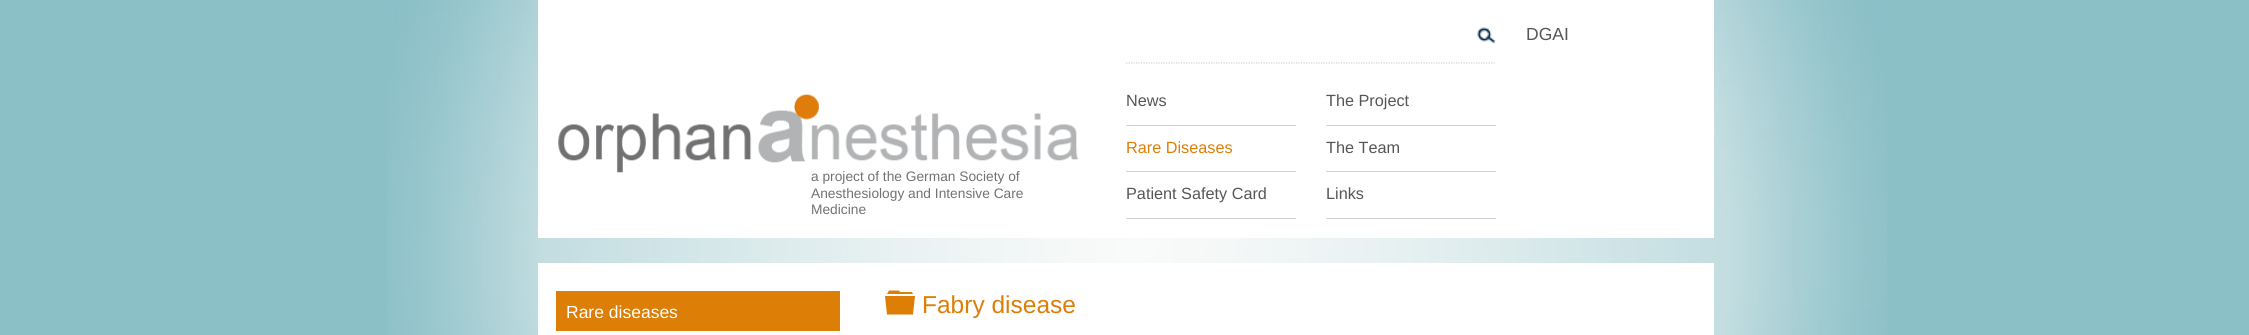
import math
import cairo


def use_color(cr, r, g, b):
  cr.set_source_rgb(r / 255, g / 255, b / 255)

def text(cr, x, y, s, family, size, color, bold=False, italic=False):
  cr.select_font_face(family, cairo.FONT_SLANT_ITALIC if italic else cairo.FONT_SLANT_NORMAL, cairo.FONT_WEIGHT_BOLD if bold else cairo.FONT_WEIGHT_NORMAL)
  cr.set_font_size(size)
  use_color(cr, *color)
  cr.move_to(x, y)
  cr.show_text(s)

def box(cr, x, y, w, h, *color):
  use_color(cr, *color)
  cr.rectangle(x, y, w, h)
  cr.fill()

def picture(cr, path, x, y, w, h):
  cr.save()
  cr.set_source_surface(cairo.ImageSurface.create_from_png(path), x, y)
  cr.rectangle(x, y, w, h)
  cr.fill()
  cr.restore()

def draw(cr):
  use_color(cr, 139, 192, 199)
  cr.paint()
  picture(cr, "img_01.png", 387, 0, 1500, 335)
  box(cr, 538, 0, 1176, 238, 255, 255, 255)
  cr.new_path()
  cr.move_to(1126, 63)
  cr.line_to(1496, 63)
  use_color(cr, 212, 210, 211)
  cr.set_line_width(1.2)
  cr.set_dash([1.25, 1.25])
  cr.stroke()
  picture(cr, "img_03.png", 1477, 27, 19, 17)
  box(cr, 1126, 125, 170, 1, 212, 210, 214)
  box(cr, 1326, 125, 170, 1, 212, 210, 214)
  box(cr, 1126, 171, 170, 1, 212, 210, 214)
  box(cr, 1326, 171, 170, 1, 212, 210, 214)
  box(cr, 1126, 218, 170, 1, 212, 210, 214)
  box(cr, 1326, 218, 170, 1, 212, 210, 214)
  box(cr, 538, 263, 1176, 72, 255, 255, 255)
  box(cr, 556, 291, 284, 40, 221, 126, 7)
  cr.new_path()
  cr.move_to(885, 296)
  cr.line_to(915, 296)
  cr.line_to(913, 314.5)
  cr.line_to(887, 314.5)
  cr.close_path()
  cr.move_to(912, 292)
  cr.line_to(913, 294)
  cr.line_to(887, 294)
  cr.line_to(889, 290.5)
  cr.line_to(899, 290.5)
  cr.line_to(900, 292)
  cr.close_path()
  cr.fill()
  text(cr, 811, 181, "a project of the German Society of", "Liberation Sans", 13.75, (114, 114, 114))
  picture(cr, "img_02.png", 558, 94, 521, 79)
  text(cr, 811, 198, "Anesthesiology and Intensive Care", "Liberation Sans", 13.75, (114, 114, 114))
  text(cr, 811, 214, "Medicine", "Liberation Sans", 13.75, (114, 114, 114))
  text(cr, 1526, 40, "DGAI", "Liberation Sans", 17.5, (85, 86, 86))
  text(cr, 1126, 106, "News", "Liberation Sans", 16.25, (85, 86, 86))
  text(cr, 1326, 106, "The Project", "Liberation Sans", 16.25, (85, 86, 86))
  text(cr, 1126, 153, "Rare Diseases", "Liberation Sans", 16.25, (221, 126, 7))
  text(cr, 1326, 153, "The Team", "Liberation Sans", 16.25, (85, 86, 86))
  text(cr, 1126, 199, "Patient Safety Card", "Liberation Sans", 16.25, (85, 86, 86))
  text(cr, 1326, 199, "Links", "Liberation Sans", 16.25, (85, 86, 86))
  text(cr, 566, 318, "Rare diseases", "Liberation Sans", 17.5, (255, 255, 255))
  text(cr, 922, 313, "Fabry disease", "Liberation Sans", 24.5, (221, 126, 7))


surface = cairo.ImageSurface(cairo.FORMAT_RGB24, 2249, 335)
cr = cairo.Context(surface)
options = cairo.FontOptions()
options.set_hint_metrics(cairo.HINT_METRICS_OFF)
options.set_hint_style(cairo.HINT_STYLE_NONE)
cr.set_font_options(options)
cr.set_miter_limit(4)
draw(cr)
surface.write_to_png("out.png")
